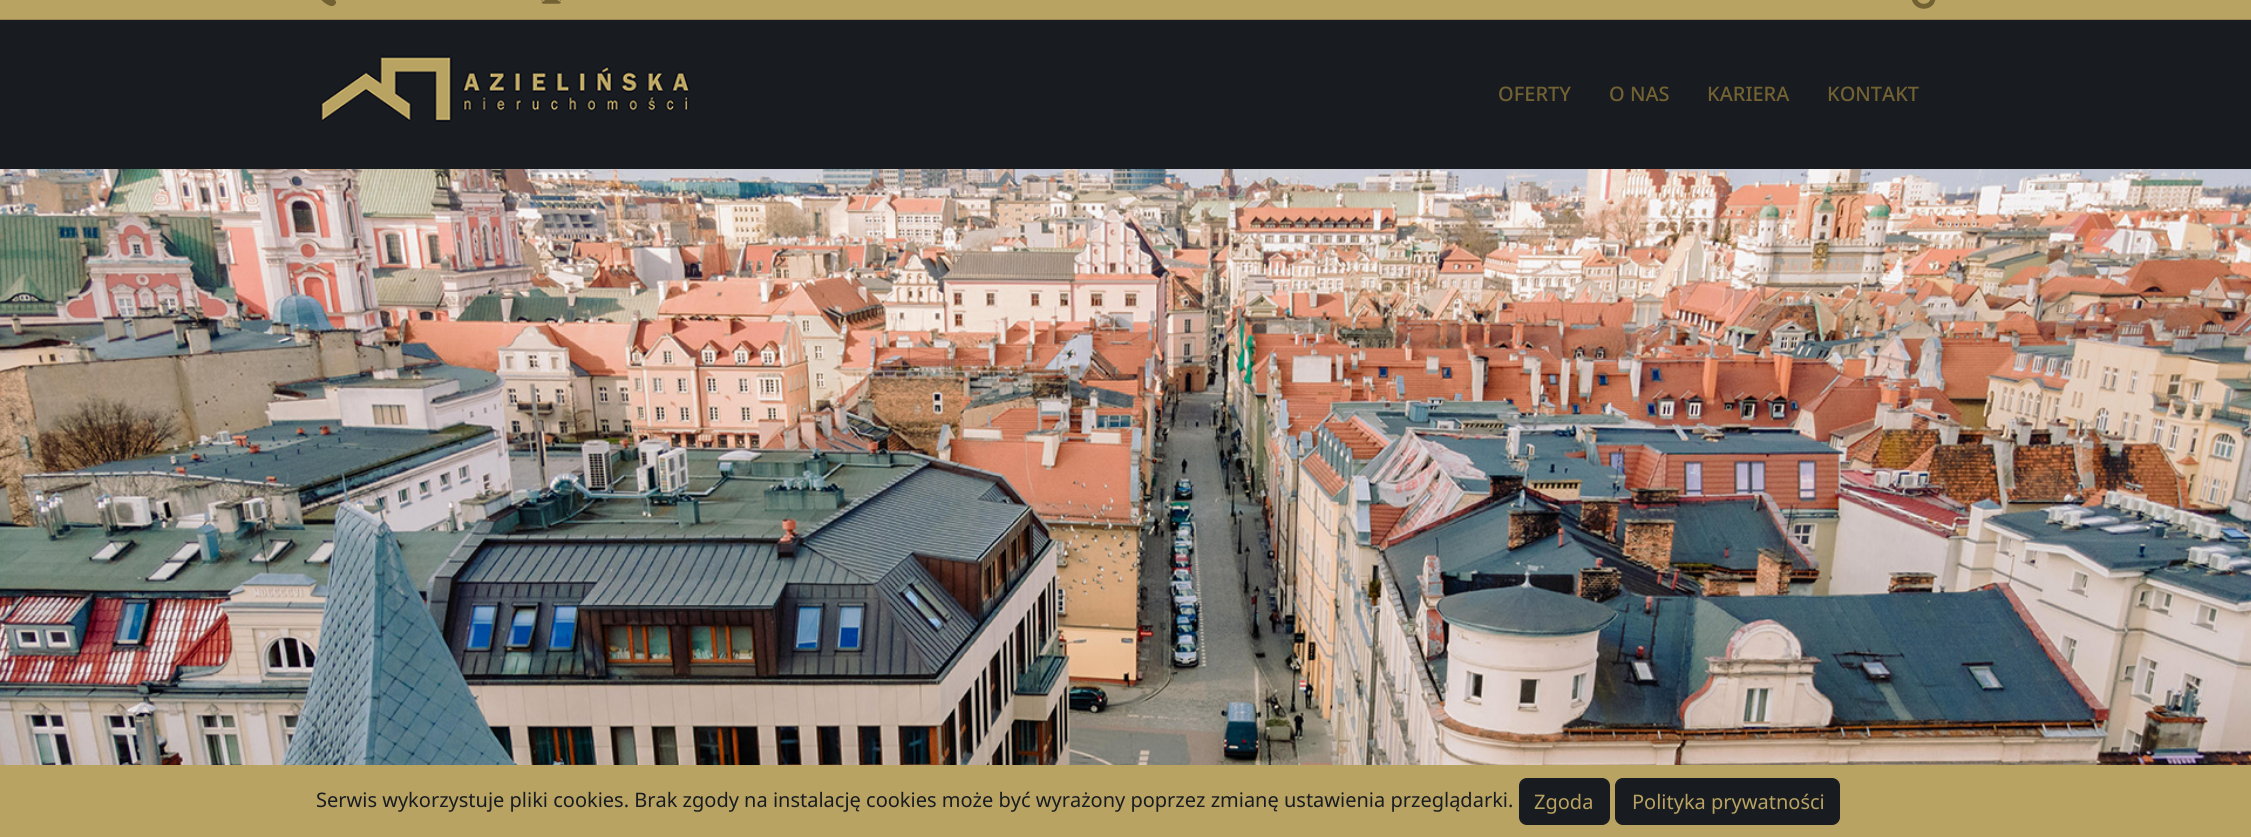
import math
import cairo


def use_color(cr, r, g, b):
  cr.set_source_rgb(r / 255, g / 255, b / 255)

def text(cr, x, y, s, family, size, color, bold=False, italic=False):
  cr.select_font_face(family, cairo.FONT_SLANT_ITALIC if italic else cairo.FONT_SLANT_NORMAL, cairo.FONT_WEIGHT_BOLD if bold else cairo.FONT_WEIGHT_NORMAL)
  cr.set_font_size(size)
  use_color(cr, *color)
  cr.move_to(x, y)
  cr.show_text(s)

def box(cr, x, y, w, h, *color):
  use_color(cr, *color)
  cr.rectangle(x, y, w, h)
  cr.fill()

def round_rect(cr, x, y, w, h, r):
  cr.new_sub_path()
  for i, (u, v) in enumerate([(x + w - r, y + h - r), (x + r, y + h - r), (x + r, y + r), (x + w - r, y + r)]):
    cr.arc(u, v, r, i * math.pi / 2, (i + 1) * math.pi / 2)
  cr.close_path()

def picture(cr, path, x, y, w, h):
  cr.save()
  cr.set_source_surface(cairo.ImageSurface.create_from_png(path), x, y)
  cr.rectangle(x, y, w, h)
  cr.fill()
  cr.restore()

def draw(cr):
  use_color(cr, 255, 255, 255)
  cr.paint()
  box(cr, 0, 0, 2251, 19, 185, 163, 98)
  box(cr, 0, 19, 2251, 1, 153, 134, 78)
  picture(cr, "img_01.png", 321, 0, 15, 6)
  picture(cr, "img_02.png", 541, 0, 20, 4)
  picture(cr, "img_03.png", 1912, 0, 24, 9)
  box(cr, 0, 20, 2251, 149, 24, 27, 32)
  picture(cr, "img_04.png", 320, 55, 370, 67)
  picture(cr, "img_05.png", 0, 169, 2251, 596)
  box(cr, 0, 765, 2251, 72, 184, 163, 98)
  use_color(cr, 24, 27, 32)
  round_rect(cr, 1519.5, 778.5, 90, 46, 7.5)
  cr.fill_preserve()
  cr.set_line_width(1)
  cr.stroke()
  round_rect(cr, 1615.5, 778.5, 224, 46, 7.5)
  cr.fill_preserve()
  cr.stroke()
  text(cr, 1498, 101, "OFERTY", "Noto Sans Medium", 20, (114, 98, 51))
  text(cr, 1609, 101, "O NAS", "Noto Sans Medium", 20, (114, 98, 51))
  text(cr, 1707, 101, "KARIERA", "Noto Sans Medium", 20, (114, 98, 51))
  text(cr, 1827, 101, "KONTAKT", "Noto Sans Medium", 20, (114, 98, 51))
  text(cr, 316, 807, "Serwis wykorzystuje pliki cookies. Brak zgody na instalację cookies może być wyrażony poprzez zmianę ustawienia przeglądarki.", "Noto Sans", 20, (24, 27, 32))
  text(cr, 1534, 809, "Zgoda", "Noto Sans", 20, (184, 163, 98))
  text(cr, 1632, 809, "Polityka prywatności", "Noto Sans", 20, (184, 163, 98))


surface = cairo.ImageSurface(cairo.FORMAT_RGB24, 2251, 837)
cr = cairo.Context(surface)
options = cairo.FontOptions()
options.set_hint_metrics(cairo.HINT_METRICS_OFF)
options.set_hint_style(cairo.HINT_STYLE_NONE)
cr.set_font_options(options)
cr.set_miter_limit(4)
draw(cr)
surface.write_to_png("out.png")
